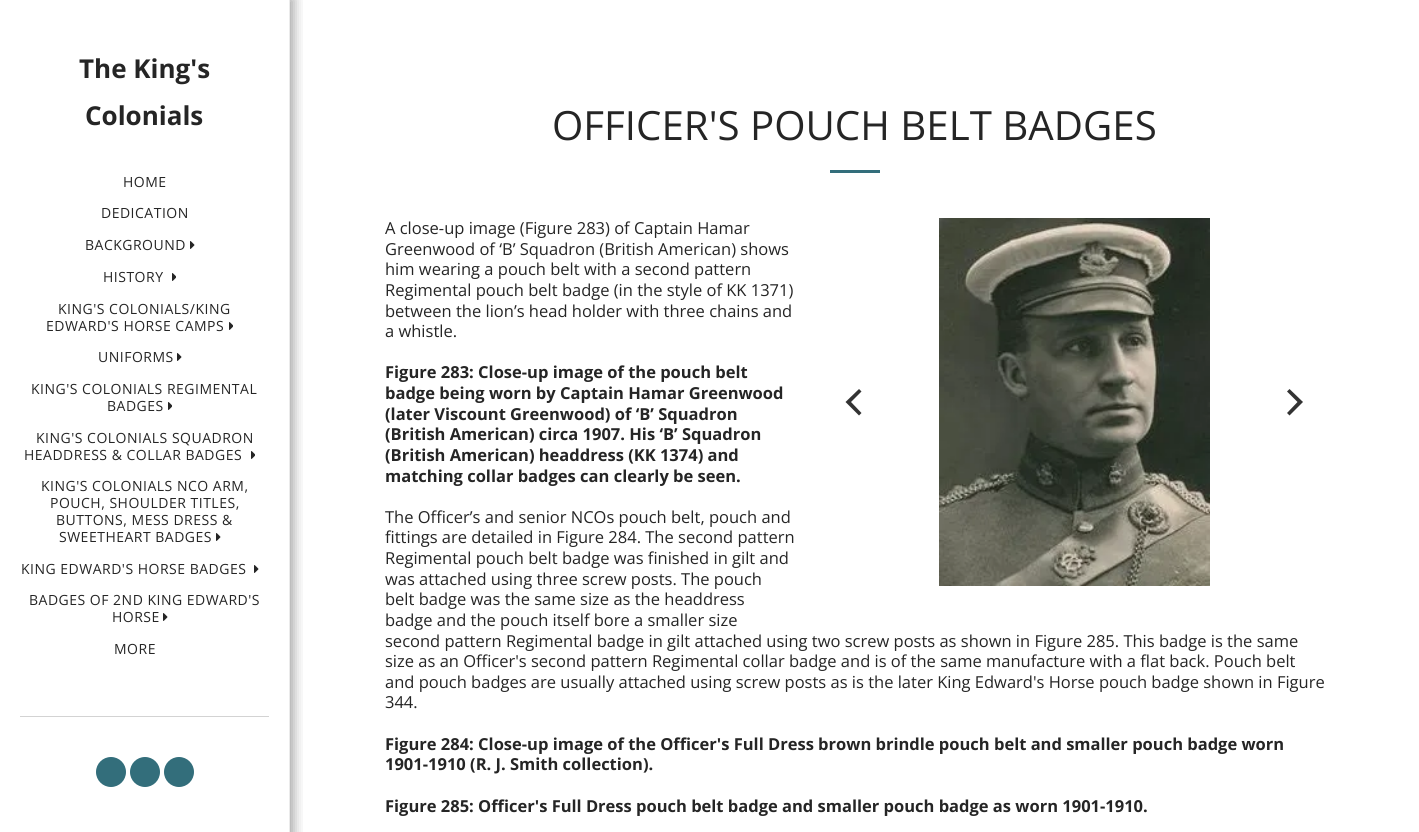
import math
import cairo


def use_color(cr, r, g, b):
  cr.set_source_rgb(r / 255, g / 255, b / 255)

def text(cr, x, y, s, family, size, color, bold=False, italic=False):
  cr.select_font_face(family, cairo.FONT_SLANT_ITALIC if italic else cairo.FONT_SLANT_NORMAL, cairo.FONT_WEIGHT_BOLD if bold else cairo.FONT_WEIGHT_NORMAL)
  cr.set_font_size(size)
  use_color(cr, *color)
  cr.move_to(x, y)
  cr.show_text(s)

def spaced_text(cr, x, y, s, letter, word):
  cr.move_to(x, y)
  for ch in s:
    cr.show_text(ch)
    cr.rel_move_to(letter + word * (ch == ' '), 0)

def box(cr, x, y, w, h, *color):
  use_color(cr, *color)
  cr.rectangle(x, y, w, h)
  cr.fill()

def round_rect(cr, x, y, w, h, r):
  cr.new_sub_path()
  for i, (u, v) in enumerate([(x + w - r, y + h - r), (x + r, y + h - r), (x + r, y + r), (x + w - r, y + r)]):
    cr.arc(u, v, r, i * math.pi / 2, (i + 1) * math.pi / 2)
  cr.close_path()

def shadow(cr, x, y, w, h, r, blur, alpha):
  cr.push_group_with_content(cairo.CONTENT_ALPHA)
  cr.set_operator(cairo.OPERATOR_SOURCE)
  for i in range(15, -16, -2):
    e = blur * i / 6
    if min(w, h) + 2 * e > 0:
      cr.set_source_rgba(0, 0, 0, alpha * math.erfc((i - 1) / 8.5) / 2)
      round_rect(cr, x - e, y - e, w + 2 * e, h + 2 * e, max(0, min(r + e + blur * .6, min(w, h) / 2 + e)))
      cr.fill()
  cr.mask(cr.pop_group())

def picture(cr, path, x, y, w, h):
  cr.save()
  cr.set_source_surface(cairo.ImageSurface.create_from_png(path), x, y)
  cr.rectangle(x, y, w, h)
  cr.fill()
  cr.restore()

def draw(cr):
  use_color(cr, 255, 255, 255)
  cr.paint()
  cr.save()
  cr.rectangle(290, 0, 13, 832)
  cr.clip()
  use_color(cr, 0, 0, 0)
  shadow(cr, 0, -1, 294, 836, 0, 6, 0.35)
  cr.restore()
  box(cr, 289, 0, 1, 832, 235, 235, 235)
  picture(cr, "img_01.png", 190, 241, 5, 8)
  picture(cr, "img_02.png", 172, 273, 4, 8)
  picture(cr, "img_02.png", 229, 322, 4, 8)
  picture(cr, "img_01.png", 177, 353, 5, 8)
  picture(cr, "img_02.png", 168, 402, 4, 8)
  picture(cr, "img_02.png", 251, 451, 4, 8)
  picture(cr, "img_01.png", 216, 533, 5, 8)
  picture(cr, "img_01.png", 254, 565, 5, 8)
  picture(cr, "img_01.png", 163, 613, 5, 8)
  box(cr, 20, 716, 249, 1, 211, 211, 211)
  use_color(cr, 51, 110, 123)
  cr.arc(111, 772, 15, 0, 2 * math.pi)
  cr.fill()
  cr.arc(145, 772, 15, 0, 2 * math.pi)
  cr.fill()
  cr.arc(179, 772, 15, 0, 2 * math.pi)
  cr.fill()
  box(cr, 830, 170, 50, 3, 51, 110, 123)
  use_color(cr, 51, 51, 51)
  cr.new_path()
  cr.move_to(845.5, 402)
  cr.line_to(859, 415.5)
  cr.line_to(861.5, 413)
  cr.line_to(851, 402)
  cr.line_to(861.5, 391.5)
  cr.line_to(859, 389)
  cr.close_path()
  cr.fill()
  picture(cr, "img_03.png", 939, 218, 271, 368)
  cr.new_path()
  cr.move_to(1303, 402)
  cr.line_to(1289.5, 389)
  cr.line_to(1287, 391.5)
  cr.line_to(1297.5, 402)
  cr.line_to(1287, 413)
  cr.line_to(1289.5, 415.5)
  cr.close_path()
  cr.fill()
  text(cr, 79, 78, "The King's", "Open Sans", 26, (37, 37, 37), bold=True)
  text(cr, 85, 125, "Colonials", "Open Sans", 26, (37, 37, 37), bold=True)
  cr.select_font_face("Open Sans")
  cr.set_font_size(14)
  spaced_text(cr, 123, 187, "HOME", 0.5, 0)
  spaced_text(cr, 101, 218, "DEDICATION", 0.5, 0)
  spaced_text(cr, 85, 250, "BACKGROUND", 0.5, 0)
  spaced_text(cr, 103, 282, "HISTORY", 0.5, 0)
  spaced_text(cr, 58, 314, "KING'S COLONIALS/KING", 0.5, 0)
  spaced_text(cr, 46, 331, "EDWARD'S HORSE CAMPS", 0.5, 0)
  spaced_text(cr, 98, 362, "UNIFORMS", 0.5, 0)
  spaced_text(cr, 31, 394, "KING'S COLONIALS REGIMENTAL", 0.5, 0)
  spaced_text(cr, 107, 411, "BADGES", 0.5, 0)
  spaced_text(cr, 36, 443, "KING'S COLONIALS SQUADRON", 0.5, 0)
  spaced_text(cr, 24, 460, "HEADDRESS & COLLAR BADGES", 0.5, 0)
  spaced_text(cr, 41, 491, "KING'S COLONIALS NCO ARM,", 0.5, 0)
  spaced_text(cr, 50, 508, "POUCH, SHOULDER TITLES,", 0.5, 0)
  spaced_text(cr, 56, 525, "BUTTONS, MESS DRESS &", 0.5, 0)
  spaced_text(cr, 59, 542, "SWEETHEART BADGES", 0.5, 0)
  spaced_text(cr, 21, 574, "KING EDWARD'S HORSE BADGES", 0.5, 0)
  spaced_text(cr, 29, 605, "BADGES OF 2ND KING EDWARD'S", 0.5, 0)
  spaced_text(cr, 112, 622, "HORSE", 0.5, 0)
  spaced_text(cr, 114, 654, "MORE", 0.5, 0)
  text(cr, 552, 140, "OFFICER'S POUCH BELT BADGES", "Open Sans", 40.25, (37, 37, 37))
  text(cr, 385, 234, "A close-up image (Figure 283) of Captain Hamar", "Open Sans", 16.5, (37, 37, 37))
  text(cr, 385, 255, "Greenwood of ‘B’ Squadron (British American) shows", "Open Sans", 16.5, (37, 37, 37))
  text(cr, 385, 275, "him wearing a pouch belt with a second pattern", "Open Sans", 16.5, (37, 37, 37))
  text(cr, 385, 296, "Regimental pouch belt badge (in the style of KK 1371)", "Open Sans", 16.5, (37, 37, 37))
  text(cr, 385, 317, "between the lion’s head holder with three chains and", "Open Sans", 16.5, (37, 37, 37))
  text(cr, 385, 337, "a whistle.", "Open Sans", 16.5, (37, 37, 37))
  text(cr, 385, 378, "Figure 283: Close-up image of the pouch belt", "Open Sans", 16.5, (37, 37, 37), bold=True)
  text(cr, 385, 399, "badge being worn by Captain Hamar Greenwood", "Open Sans", 16.5, (37, 37, 37), bold=True)
  text(cr, 385, 420, "(later Viscount Greenwood) of ‘B’ Squadron", "Open Sans", 16.5, (37, 37, 37), bold=True)
  text(cr, 385, 440, "(British American) circa 1907. His ‘B’ Squadron", "Open Sans", 16.5, (37, 37, 37), bold=True)
  text(cr, 385, 461, "(British American) headdress (KK 1374) and", "Open Sans", 16.5, (37, 37, 37), bold=True)
  text(cr, 385, 482, "matching collar badges can clearly be seen.", "Open Sans", 16.5, (37, 37, 37), bold=True)
  text(cr, 385, 523, "The Officer’s and senior NCOs pouch belt, pouch and", "Open Sans", 16.5, (37, 37, 37))
  text(cr, 385, 543, "fittings are detailed in Figure 284. The second pattern", "Open Sans", 16.5, (37, 37, 37))
  text(cr, 385, 564, "Regimental pouch belt badge was finished in gilt and", "Open Sans", 16.5, (37, 37, 37))
  text(cr, 385, 585, "was attached using three screw posts. The pouch", "Open Sans", 16.5, (37, 37, 37))
  text(cr, 385, 605, "belt badge was the same size as the headdress", "Open Sans", 16.5, (37, 37, 37))
  text(cr, 385, 626, "badge and the pouch itself bore a smaller size", "Open Sans", 16.5, (37, 37, 37))
  text(cr, 385, 647, "second pattern Regimental badge in gilt attached using two screw posts as shown in Figure 285. This badge is the same", "Open Sans", 16.5, (37, 37, 37))
  text(cr, 385, 667, "size as an Officer's second pattern Regimental collar badge and is of the same manufacture with a flat back. Pouch belt", "Open Sans", 16.5, (37, 37, 37))
  text(cr, 385, 688, "and pouch badges are usually attached using screw posts as is the later King Edward's Horse pouch badge shown in Figure", "Open Sans", 16.5, (37, 37, 37))
  text(cr, 385, 708, "344.", "Open Sans", 16.5, (37, 37, 37))
  text(cr, 385, 750, "Figure 284: Close-up image of the Officer's Full Dress brown brindle pouch belt and smaller pouch badge worn", "Open Sans", 16.5, (37, 37, 37), bold=True)
  text(cr, 385, 770, "1901-1910 (R. J. Smith collection).", "Open Sans", 16.5, (37, 37, 37), bold=True)
  text(cr, 385, 812, "Figure 285: Officer's Full Dress pouch belt badge and smaller pouch badge as worn 1901-1910.", "Open Sans", 16.5, (37, 37, 37), bold=True)


surface = cairo.ImageSurface(cairo.FORMAT_RGB24, 1419, 832)
cr = cairo.Context(surface)
options = cairo.FontOptions()
options.set_hint_metrics(cairo.HINT_METRICS_OFF)
options.set_hint_style(cairo.HINT_STYLE_NONE)
cr.set_font_options(options)
cr.set_miter_limit(4)
draw(cr)
surface.write_to_png("out.png")
